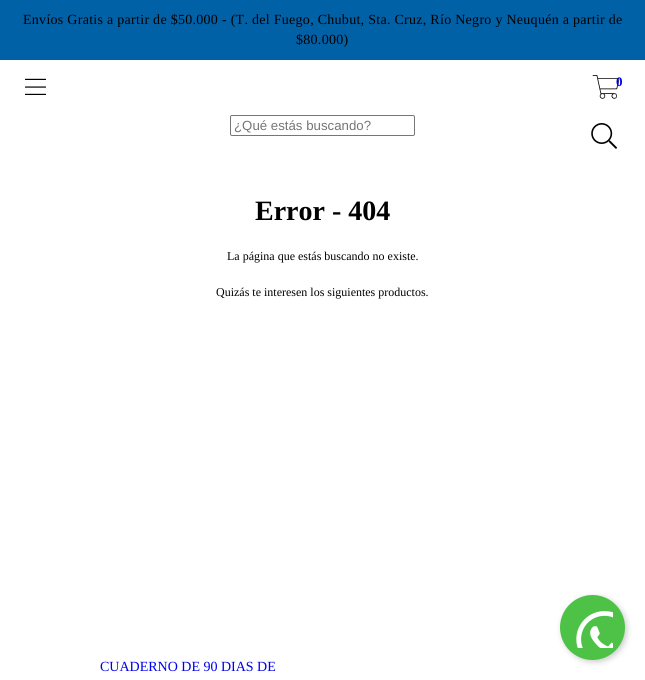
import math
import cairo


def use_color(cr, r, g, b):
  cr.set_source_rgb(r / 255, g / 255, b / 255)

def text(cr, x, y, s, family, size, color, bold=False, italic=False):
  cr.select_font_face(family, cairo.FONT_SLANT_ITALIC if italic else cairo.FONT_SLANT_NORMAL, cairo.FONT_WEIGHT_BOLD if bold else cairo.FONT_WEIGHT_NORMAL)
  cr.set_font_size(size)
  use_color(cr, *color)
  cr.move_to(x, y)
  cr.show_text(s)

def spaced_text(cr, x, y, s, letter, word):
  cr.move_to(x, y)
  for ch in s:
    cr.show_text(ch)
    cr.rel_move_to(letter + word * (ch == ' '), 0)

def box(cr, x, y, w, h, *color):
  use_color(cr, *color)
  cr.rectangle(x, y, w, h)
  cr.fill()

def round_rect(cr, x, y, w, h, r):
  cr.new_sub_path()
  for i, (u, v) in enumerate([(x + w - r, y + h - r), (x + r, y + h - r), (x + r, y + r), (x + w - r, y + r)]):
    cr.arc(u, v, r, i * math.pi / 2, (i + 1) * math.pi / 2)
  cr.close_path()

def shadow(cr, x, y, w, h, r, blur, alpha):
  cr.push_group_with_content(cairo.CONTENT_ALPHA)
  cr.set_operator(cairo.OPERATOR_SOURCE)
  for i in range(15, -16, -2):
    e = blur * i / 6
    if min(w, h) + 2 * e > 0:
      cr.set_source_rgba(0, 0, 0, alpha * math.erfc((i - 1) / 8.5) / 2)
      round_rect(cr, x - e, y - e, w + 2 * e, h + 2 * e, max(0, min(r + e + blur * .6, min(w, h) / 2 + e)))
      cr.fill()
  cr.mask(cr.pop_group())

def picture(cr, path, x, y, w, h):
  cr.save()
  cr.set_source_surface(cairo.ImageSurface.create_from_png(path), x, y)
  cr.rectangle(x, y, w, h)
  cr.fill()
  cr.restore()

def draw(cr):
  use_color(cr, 255, 255, 255)
  cr.paint()
  box(cr, 0, 0, 645, 60, 0, 97, 167)
  picture(cr, "img_01.png", 25, 78, 21, 17)
  picture(cr, "img_02.png", 592, 75, 28, 24)
  round_rect(cr, 230.5, 115.5, 184, 20, 1.5)
  use_color(cr, 118, 118, 118)
  cr.set_line_width(1)
  cr.stroke()
  picture(cr, "img_03.png", 591, 123, 26, 26)
  use_color(cr, 0, 0, 0)
  shadow(cr, 562, 597, 65, 65, 32.5, 3, 0.2)
  use_color(cr, 77, 194, 71)
  cr.arc(592.5, 627.5, 32.5, 0, 2 * math.pi)
  cr.fill()
  picture(cr, "img_04.png", 576, 611, 37, 37)
  cr.select_font_face("Liberation Serif")
  cr.set_font_size(14)
  use_color(cr, 0, 0, 0)
  spaced_text(cr, 23, 24, "Envíos Gratis a partir de $50.000 - (T. del Fuego, Chubut, Sta. Cruz, Río Negro y Neuquén a partir de", 0.28, 0)
  spaced_text(cr, 296, 44, "$80.000)", 0.28, 0)
  text(cr, 616, 86, "0", "Liberation Serif", 13, (0, 0, 238), bold=True)
  text(cr, 234, 130, "¿Qué estás buscando?", "Liberation Sans", 13.25, (117, 117, 117))
  text(cr, 255, 220, "Error - 404", "Liberation Serif", 28, (0, 0, 0), bold=True)
  text(cr, 227, 260, "La página que estás buscando no existe.", "Liberation Serif", 12, (0, 0, 0))
  text(cr, 216, 296, "Quizás te interesen los siguientes productos.", "Liberation Serif", 12, (0, 0, 0))
  text(cr, 100, 671, "CUADERNO DE 90 DIAS DE", "Liberation Serif", 14, (0, 0, 238))


surface = cairo.ImageSurface(cairo.FORMAT_RGB24, 645, 680)
cr = cairo.Context(surface)
options = cairo.FontOptions()
options.set_hint_metrics(cairo.HINT_METRICS_OFF)
options.set_hint_style(cairo.HINT_STYLE_NONE)
cr.set_font_options(options)
cr.set_miter_limit(4)
draw(cr)
surface.write_to_png("out.png")
